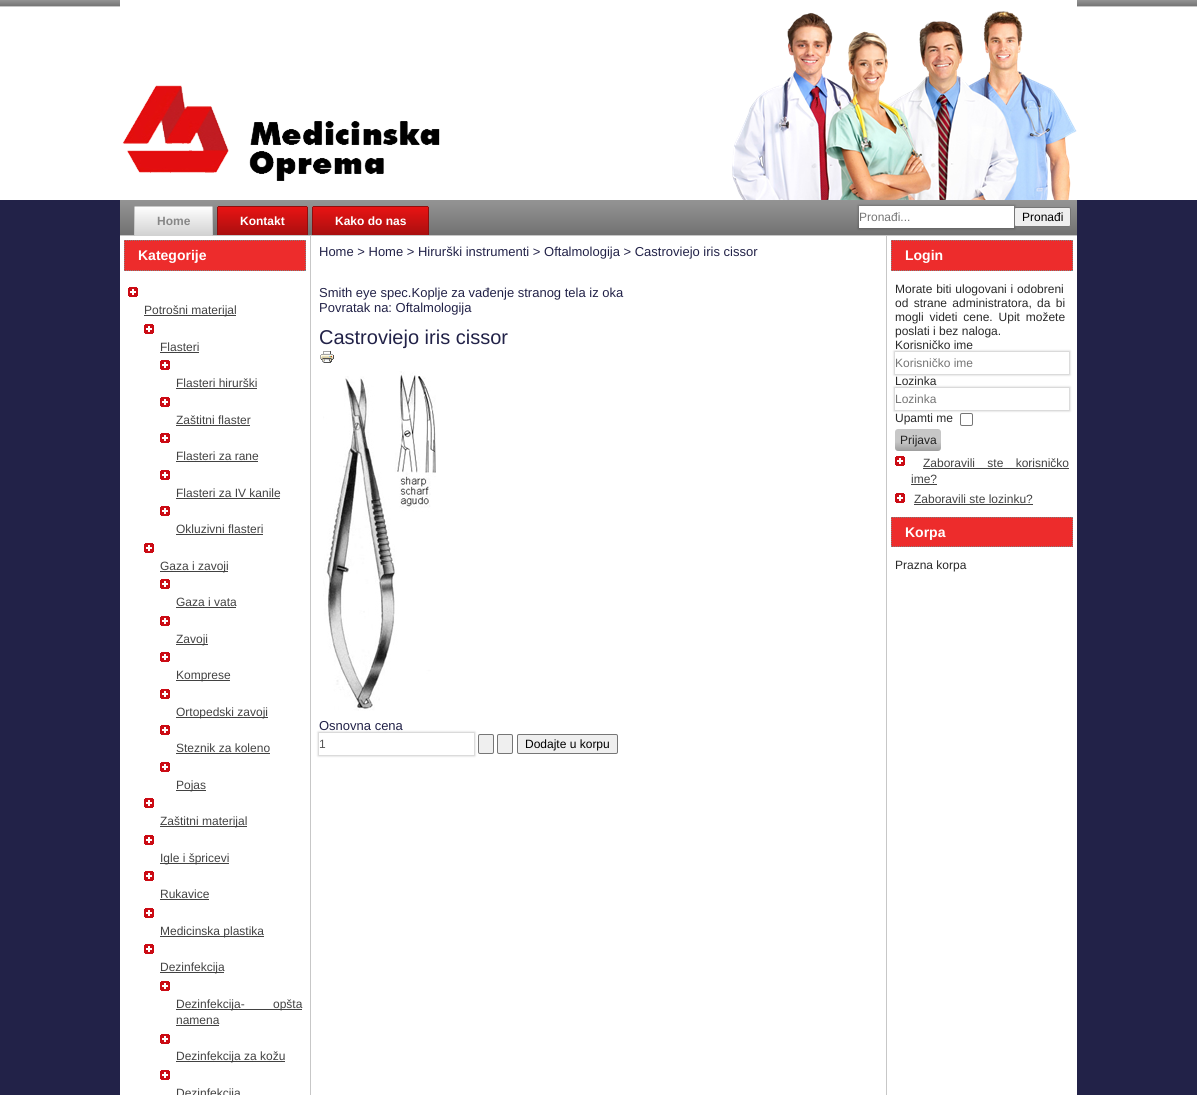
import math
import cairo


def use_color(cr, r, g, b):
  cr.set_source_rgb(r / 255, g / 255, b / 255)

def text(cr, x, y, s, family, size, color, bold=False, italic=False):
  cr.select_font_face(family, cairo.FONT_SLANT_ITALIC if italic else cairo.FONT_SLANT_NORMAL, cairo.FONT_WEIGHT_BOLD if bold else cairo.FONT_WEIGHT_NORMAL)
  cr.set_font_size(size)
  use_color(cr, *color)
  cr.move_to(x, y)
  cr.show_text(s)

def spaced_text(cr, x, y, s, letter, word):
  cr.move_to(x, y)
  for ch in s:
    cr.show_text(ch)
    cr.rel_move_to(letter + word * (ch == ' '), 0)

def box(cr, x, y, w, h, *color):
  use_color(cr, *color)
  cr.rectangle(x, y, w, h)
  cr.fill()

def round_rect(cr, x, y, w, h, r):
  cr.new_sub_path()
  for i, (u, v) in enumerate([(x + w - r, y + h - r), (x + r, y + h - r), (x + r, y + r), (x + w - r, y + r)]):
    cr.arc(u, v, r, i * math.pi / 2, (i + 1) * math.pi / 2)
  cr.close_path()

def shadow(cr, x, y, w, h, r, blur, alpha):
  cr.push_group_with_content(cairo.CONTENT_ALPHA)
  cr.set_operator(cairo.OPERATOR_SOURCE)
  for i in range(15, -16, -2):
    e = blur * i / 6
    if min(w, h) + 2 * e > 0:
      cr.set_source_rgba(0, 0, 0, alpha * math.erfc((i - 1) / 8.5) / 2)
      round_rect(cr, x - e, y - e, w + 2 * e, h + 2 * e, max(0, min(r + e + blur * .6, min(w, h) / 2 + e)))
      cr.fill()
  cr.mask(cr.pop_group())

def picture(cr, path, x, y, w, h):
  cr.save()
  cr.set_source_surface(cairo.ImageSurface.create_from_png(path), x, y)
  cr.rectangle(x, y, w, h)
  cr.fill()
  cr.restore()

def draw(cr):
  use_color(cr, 34, 34, 72)
  cr.paint()
  gradient = cairo.LinearGradient(599, 0, 599, 7)
  gradient.add_color_stop_rgba(0, 0.58, 0.58, 0.58, 1)
  gradient.add_color_stop_rgba(0.57, 0.502, 0.502, 0.502, 1)
  gradient.add_color_stop_rgba(1, 0.439, 0.439, 0.439, 1)
  cr.set_source(gradient)
  cr.rectangle(0, 0, 1197, 6)
  cr.fill()
  box(cr, 0, 6, 1197, 1, 199, 199, 199)
  box(cr, 0, 7, 1197, 193, 255, 255, 255)
  box(cr, 120, 0, 957, 1095, 255, 255, 255)
  picture(cr, "img_01.png", 122, 85, 318, 96)
  picture(cr, "img_02.png", 732, 11, 345, 189)
  gradient = cairo.LinearGradient(599, 200, 599, 236)
  gradient.add_color_stop_rgba(0, 0.58, 0.58, 0.58, 1)
  gradient.add_color_stop_rgba(0.57, 0.502, 0.502, 0.502, 1)
  gradient.add_color_stop_rgba(1, 0.439, 0.439, 0.439, 1)
  cr.set_source(gradient)
  cr.rectangle(120, 200, 957, 35)
  cr.fill()
  box(cr, 120, 235, 957, 1, 199, 199, 199)
  gradient = cairo.LinearGradient(174, 206, 174, 236)
  gradient.add_color_stop_rgba(0, 1, 1, 1, 1)
  gradient.add_color_stop_rgba(1, 0.82, 0.82, 0.82, 1)
  cr.set_source(gradient)
  cr.new_path()
  cr.move_to(136, 206)
  cr.line_to(211, 206)
  cr.curve_to(212, 206, 213, 207, 213, 208)
  cr.line_to(213, 236)
  cr.line_to(134, 236)
  cr.line_to(134, 208)
  cr.curve_to(134, 207, 135, 206, 136, 206)
  cr.close_path()
  cr.fill()
  box(cr, 135, 206, 77, 1, 199, 199, 199)
  box(cr, 212, 207, 1, 29, 199, 199, 199)
  box(cr, 134, 207, 1, 29, 199, 199, 199)
  gradient = cairo.LinearGradient(263, 206, 263, 235)
  gradient.add_color_stop_rgba(0, 0.922, 0.078, 0.078, 1)
  gradient.add_color_stop_rgba(1, 0.663, 0.059, 0.059, 1)
  cr.set_source(gradient)
  cr.new_path()
  cr.move_to(219, 206)
  cr.line_to(306, 206)
  cr.curve_to(307, 206, 308, 207, 308, 208)
  cr.line_to(308, 235)
  cr.line_to(217, 235)
  cr.line_to(217, 208)
  cr.curve_to(217, 207, 218, 206, 219, 206)
  cr.close_path()
  cr.fill()
  box(cr, 218, 206, 89, 1, 145, 13, 13)
  box(cr, 307, 207, 1, 28, 145, 13, 13)
  box(cr, 217, 207, 1, 28, 145, 13, 13)
  gradient = cairo.LinearGradient(371, 206, 371, 235)
  gradient.add_color_stop_rgba(0, 0.922, 0.078, 0.078, 1)
  gradient.add_color_stop_rgba(1, 0.663, 0.059, 0.059, 1)
  cr.set_source(gradient)
  cr.new_path()
  cr.move_to(314, 206)
  cr.line_to(427, 206)
  cr.curve_to(428, 206, 429, 207, 429, 208)
  cr.line_to(429, 235)
  cr.line_to(312, 235)
  cr.line_to(312, 208)
  cr.curve_to(312, 207, 313, 206, 314, 206)
  cr.close_path()
  cr.fill()
  box(cr, 313, 206, 115, 1, 145, 13, 13)
  box(cr, 428, 207, 1, 28, 145, 13, 13)
  box(cr, 312, 207, 1, 28, 145, 13, 13)
  use_color(cr, 0, 0, 0)
  shadow(cr, 858, 205, 157, 24, 0, 1, 0.2)
  box(cr, 859, 206, 155, 22, 255, 255, 255)
  use_color(cr, 239, 239, 239)
  round_rect(cr, 1014.5, 207.5, 56, 19, 1.5)
  cr.fill_preserve()
  use_color(cr, 118, 118, 118)
  cr.set_line_width(1)
  cr.stroke()
  box(cr, 310, 236, 1, 859, 199, 199, 199)
  box(cr, 124, 240, 182, 31, 237, 44, 44)
  cr.new_path()
  cr.move_to(124, 240.5)
  cr.line_to(306, 240.5)
  use_color(cr, 130, 130, 130)
  cr.set_dash([1, 1])
  cr.stroke()
  cr.new_path()
  cr.move_to(305.5, 240)
  cr.line_to(305.5, 271)
  cr.stroke()
  cr.new_path()
  cr.move_to(124, 270.5)
  cr.line_to(306, 270.5)
  cr.stroke()
  cr.new_path()
  cr.move_to(124.5, 240)
  cr.line_to(124.5, 271)
  cr.stroke()
  picture(cr, "img_03.png", 128, 287, 10, 10)
  box(cr, 144, 315, 92, 1, 66, 66, 66)
  picture(cr, "img_03.png", 144, 324, 10, 10)
  box(cr, 160, 352, 39, 1, 66, 66, 66)
  picture(cr, "img_03.png", 160, 360, 10, 10)
  box(cr, 176, 388, 81, 1, 66, 66, 66)
  picture(cr, "img_03.png", 160, 397, 10, 10)
  box(cr, 176, 425, 74, 1, 66, 66, 66)
  picture(cr, "img_03.png", 160, 433, 10, 10)
  box(cr, 176, 461, 82, 1, 66, 66, 66)
  picture(cr, "img_03.png", 160, 470, 10, 10)
  box(cr, 176, 498, 104, 1, 66, 66, 66)
  picture(cr, "img_03.png", 160, 506, 10, 10)
  box(cr, 176, 534, 87, 1, 66, 66, 66)
  picture(cr, "img_03.png", 144, 543, 10, 10)
  box(cr, 160, 571, 68, 1, 66, 66, 66)
  picture(cr, "img_03.png", 160, 579, 10, 10)
  box(cr, 176, 607, 60, 1, 66, 66, 66)
  picture(cr, "img_03.png", 160, 616, 10, 10)
  box(cr, 176, 644, 32, 1, 66, 66, 66)
  picture(cr, "img_03.png", 160, 652, 10, 10)
  box(cr, 176, 680, 54, 1, 66, 66, 66)
  picture(cr, "img_03.png", 160, 689, 10, 10)
  box(cr, 176, 717, 92, 1, 66, 66, 66)
  picture(cr, "img_03.png", 160, 725, 10, 10)
  box(cr, 176, 753, 94, 1, 66, 66, 66)
  picture(cr, "img_03.png", 160, 762, 10, 10)
  box(cr, 176, 790, 30, 1, 66, 66, 66)
  picture(cr, "img_03.png", 144, 798, 10, 10)
  box(cr, 160, 826, 87, 1, 66, 66, 66)
  picture(cr, "img_03.png", 144, 835, 10, 10)
  box(cr, 160, 863, 69, 1, 66, 66, 66)
  picture(cr, "img_03.png", 144, 871, 10, 10)
  box(cr, 160, 899, 49, 1, 66, 66, 66)
  picture(cr, "img_03.png", 144, 908, 10, 10)
  box(cr, 160, 936, 104, 1, 66, 66, 66)
  picture(cr, "img_03.png", 144, 944, 10, 10)
  box(cr, 160, 972, 64, 1, 66, 66, 66)
  picture(cr, "img_03.png", 160, 981, 10, 10)
  box(cr, 176, 1009, 126, 1, 66, 66, 66)
  box(cr, 176, 1025, 43, 1, 66, 66, 66)
  picture(cr, "img_03.png", 160, 1034, 10, 10)
  box(cr, 176, 1061, 109, 1, 66, 66, 66)
  picture(cr, "img_03.png", 160, 1070, 10, 10)
  picture(cr, "img_04.png", 320, 351, 14, 12)
  picture(cr, "img_05.png", 323, 371, 113, 340)
  cr.save()
  cr.set_fill_rule(cairo.FILL_RULE_EVEN_ODD)
  cr.new_path()
  cr.move_to(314, 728)
  cr.line_to(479, 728)
  cr.line_to(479, 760)
  cr.line_to(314, 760)
  cr.close_path()
  cr.move_to(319, 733)
  cr.line_to(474, 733)
  cr.line_to(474, 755)
  cr.line_to(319, 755)
  cr.close_path()
  cr.clip()
  use_color(cr, 0, 0, 0)
  shadow(cr, 318, 732, 157, 24, 0, 1, 0.2)
  cr.restore()
  use_color(cr, 239, 239, 239)
  round_rect(cr, 478.5, 734.5, 15, 19, 1.5)
  cr.fill_preserve()
  use_color(cr, 118, 118, 118)
  cr.set_dash([])
  cr.stroke()
  use_color(cr, 239, 239, 239)
  round_rect(cr, 497.5, 734.5, 15, 19, 1.5)
  cr.fill_preserve()
  use_color(cr, 118, 118, 118)
  cr.stroke()
  use_color(cr, 239, 239, 239)
  round_rect(cr, 517.5, 734.5, 100, 19, 1.5)
  cr.fill_preserve()
  use_color(cr, 118, 118, 118)
  cr.stroke()
  box(cr, 886, 236, 1, 859, 199, 199, 199)
  box(cr, 891, 240, 182, 31, 237, 44, 44)
  cr.new_path()
  cr.move_to(891, 240.5)
  cr.line_to(1073, 240.5)
  use_color(cr, 130, 130, 130)
  cr.set_dash([1, 1])
  cr.stroke()
  cr.new_path()
  cr.move_to(1072.5, 240)
  cr.line_to(1072.5, 271)
  cr.stroke()
  cr.new_path()
  cr.move_to(891, 270.5)
  cr.line_to(1073, 270.5)
  cr.stroke()
  cr.new_path()
  cr.move_to(891.5, 240)
  cr.line_to(891.5, 271)
  cr.stroke()
  cr.save()
  cr.set_fill_rule(cairo.FILL_RULE_EVEN_ODD)
  cr.new_path()
  cr.move_to(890, 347)
  cr.line_to(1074, 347)
  cr.line_to(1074, 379)
  cr.line_to(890, 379)
  cr.close_path()
  cr.move_to(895, 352)
  cr.line_to(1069, 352)
  cr.line_to(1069, 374)
  cr.line_to(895, 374)
  cr.close_path()
  cr.clip()
  use_color(cr, 0, 0, 0)
  shadow(cr, 894, 351, 176, 24, 0, 1, 0.2)
  cr.restore()
  cr.save()
  cr.set_fill_rule(cairo.FILL_RULE_EVEN_ODD)
  cr.new_path()
  cr.move_to(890, 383)
  cr.line_to(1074, 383)
  cr.line_to(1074, 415)
  cr.line_to(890, 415)
  cr.close_path()
  cr.move_to(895, 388)
  cr.line_to(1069, 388)
  cr.line_to(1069, 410)
  cr.line_to(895, 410)
  cr.close_path()
  cr.clip()
  use_color(cr, 0, 0, 0)
  shadow(cr, 894, 387, 176, 24, 0, 1, 0.2)
  cr.restore()
  round_rect(cr, 960.5, 413.5, 12, 12, 1.5)
  use_color(cr, 118, 118, 118)
  cr.set_dash([])
  cr.stroke()
  gradient = cairo.LinearGradient(918, 429, 918, 451)
  gradient.add_color_stop_rgba(0, 0.78, 0.78, 0.78, 1)
  gradient.add_color_stop_rgba(0.5, 0.78, 0.78, 0.78, 1)
  gradient.add_color_stop_rgba(0.6, 0.769, 0.769, 0.769, 1)
  gradient.add_color_stop_rgba(1, 0.62, 0.62, 0.62, 1)
  cr.set_source(gradient)
  round_rect(cr, 895, 429, 46, 22, 3)
  cr.fill()
  picture(cr, "img_03.png", 895, 456, 10, 10)
  box(cr, 923, 468, 146, 1, 66, 66, 66)
  box(cr, 911, 484, 26, 1, 66, 66, 66)
  picture(cr, "img_03.png", 895, 493, 10, 10)
  box(cr, 914, 504, 119, 1, 66, 66, 66)
  box(cr, 891, 517, 182, 30, 237, 44, 44)
  cr.new_path()
  cr.move_to(891, 517.5)
  cr.line_to(1073, 517.5)
  use_color(cr, 130, 130, 130)
  cr.set_dash([1, 1])
  cr.stroke()
  cr.new_path()
  cr.move_to(1072.5, 517)
  cr.line_to(1072.5, 547)
  cr.stroke()
  cr.new_path()
  cr.move_to(891, 546.5)
  cr.line_to(1073, 546.5)
  cr.stroke()
  cr.new_path()
  cr.move_to(891.5, 517)
  cr.line_to(891.5, 547)
  cr.stroke()
  text(cr, 157, 225, "Home", "Liberation Sans", 12, (135, 135, 135), bold=True)
  text(cr, 240, 225, "Kontakt", "Liberation Sans", 12, (255, 255, 255), bold=True)
  text(cr, 335, 225, "Kako do nas", "Liberation Sans", 12, (255, 255, 255), bold=True)
  text(cr, 859, 221, "Pronađi...", "Liberation Sans", 12, (117, 117, 117))
  text(cr, 1022, 221, "Pronađi", "Liberation Sans", 12, (0, 0, 0))
  text(cr, 138, 260, "Kategorije", "Liberation Sans", 14, (255, 255, 255), bold=True)
  text(cr, 144, 314, "Potrošni materijal", "Liberation Sans", 12, (66, 66, 66))
  text(cr, 160, 351, "Flasteri", "Liberation Sans", 12, (66, 66, 66))
  text(cr, 176, 387, "Flasteri hirurški", "Liberation Sans", 12, (66, 66, 66))
  text(cr, 176, 424, "Zaštitni flaster", "Liberation Sans", 12, (66, 66, 66))
  text(cr, 176, 460, "Flasteri za rane", "Liberation Sans", 12, (66, 66, 66))
  text(cr, 176, 497, "Flasteri za IV kanile", "Liberation Sans", 12, (66, 66, 66))
  text(cr, 176, 533, "Okluzivni flasteri", "Liberation Sans", 12, (66, 66, 66))
  text(cr, 160, 570, "Gaza i zavoji", "Liberation Sans", 12, (66, 66, 66))
  text(cr, 176, 606, "Gaza i vata", "Liberation Sans", 12, (66, 66, 66))
  text(cr, 176, 643, "Zavoji", "Liberation Sans", 12, (66, 66, 66))
  text(cr, 176, 679, "Komprese", "Liberation Sans", 12, (66, 66, 66))
  text(cr, 176, 716, "Ortopedski zavoji", "Liberation Sans", 12, (66, 66, 66))
  text(cr, 176, 752, "Steznik za koleno", "Liberation Sans", 12, (66, 66, 66))
  text(cr, 176, 789, "Pojas", "Liberation Sans", 12, (66, 66, 66))
  text(cr, 160, 825, "Zaštitni materijal", "Liberation Sans", 12, (66, 66, 66))
  text(cr, 160, 862, "Igle i špricevi", "Liberation Sans", 12, (66, 66, 66))
  text(cr, 160, 898, "Rukavice", "Liberation Sans", 12, (66, 66, 66))
  text(cr, 160, 935, "Medicinska plastika", "Liberation Sans", 12, (66, 66, 66))
  text(cr, 160, 971, "Dezinfekcija", "Liberation Sans", 12, (66, 66, 66))
  spaced_text(cr, 176, 1008, "Dezinfekcija- opšta", 0, 25)
  text(cr, 176, 1024, "namena", "Liberation Sans", 12, (66, 66, 66))
  text(cr, 176, 1060, "Dezinfekcija za kožu", "Liberation Sans", 12, (66, 66, 66))
  text(cr, 176, 1097, "Dezinfekcija", "Liberation Sans", 12, (66, 66, 66))
  text(cr, 319, 256, "Home > Home > Hirurški instrumenti > Oftalmologija > Castroviejo iris cissor", "Liberation Sans", 13, (34, 34, 72))
  text(cr, 319, 297, "Smith eye spec.Koplje za vađenje stranog tela iz oka", "Liberation Sans", 13, (34, 34, 72))
  text(cr, 319, 312, "Povratak na: Oftalmologija", "Liberation Sans", 13, (34, 34, 72))
  text(cr, 319, 344, "Castroviejo iris cissor", "Liberation Sans", 20, (34, 34, 72))
  text(cr, 319, 730, "Osnovna cena", "Liberation Sans", 13, (34, 34, 72))
  text(cr, 319, 748, "1", "Liberation Sans", 12, (84, 84, 84))
  text(cr, 525, 748, "Dodajte u korpu", "Liberation Sans", 12, (0, 0, 0))
  text(cr, 905, 260, "Login", "Liberation Sans", 14, (255, 255, 255), bold=True)
  cr.select_font_face("Liberation Sans")
  cr.set_font_size(12)
  use_color(cr, 41, 41, 41)
  spaced_text(cr, 895, 293, "Morate biti ulogovani i odobreni", 0, 0.5)
  spaced_text(cr, 895, 307, "od strane administratora, da bi", 0, 2)
  spaced_text(cr, 895, 321, "mogli videti cene. Upit možete", 0, 2.5)
  text(cr, 895, 335, "poslati i bez naloga.", "Liberation Sans", 12, (41, 41, 41))
  text(cr, 895, 349, "Korisničko ime", "Liberation Sans", 12, (41, 41, 41))
  text(cr, 895, 367, "Korisničko ime", "Liberation Sans", 12, (117, 117, 117))
  text(cr, 895, 385, "Lozinka", "Liberation Sans", 12, (41, 41, 41))
  text(cr, 895, 403, "Lozinka", "Liberation Sans", 12, (117, 117, 117))
  text(cr, 895, 422, "Upamti me", "Liberation Sans", 12, (41, 41, 41))
  text(cr, 900, 444, "Prijava", "Liberation Sans", 12, (33, 33, 33))
  use_color(cr, 66, 66, 66)
  spaced_text(cr, 923, 467, "Zaboravili ste korisničko", 0, 9)
  text(cr, 911, 483, "ime?", "Liberation Sans", 12, (66, 66, 66))
  text(cr, 914, 503, "Zaboravili ste lozinku?", "Liberation Sans", 12, (66, 66, 66))
  text(cr, 905, 537, "Korpa", "Liberation Sans", 14, (255, 255, 255), bold=True)
  text(cr, 895, 569, "Prazna korpa", "Liberation Sans", 12, (41, 41, 41))


surface = cairo.ImageSurface(cairo.FORMAT_RGB24, 1197, 1095)
cr = cairo.Context(surface)
options = cairo.FontOptions()
options.set_hint_metrics(cairo.HINT_METRICS_OFF)
options.set_hint_style(cairo.HINT_STYLE_NONE)
cr.set_font_options(options)
cr.set_miter_limit(4)
draw(cr)
surface.write_to_png("out.png")
